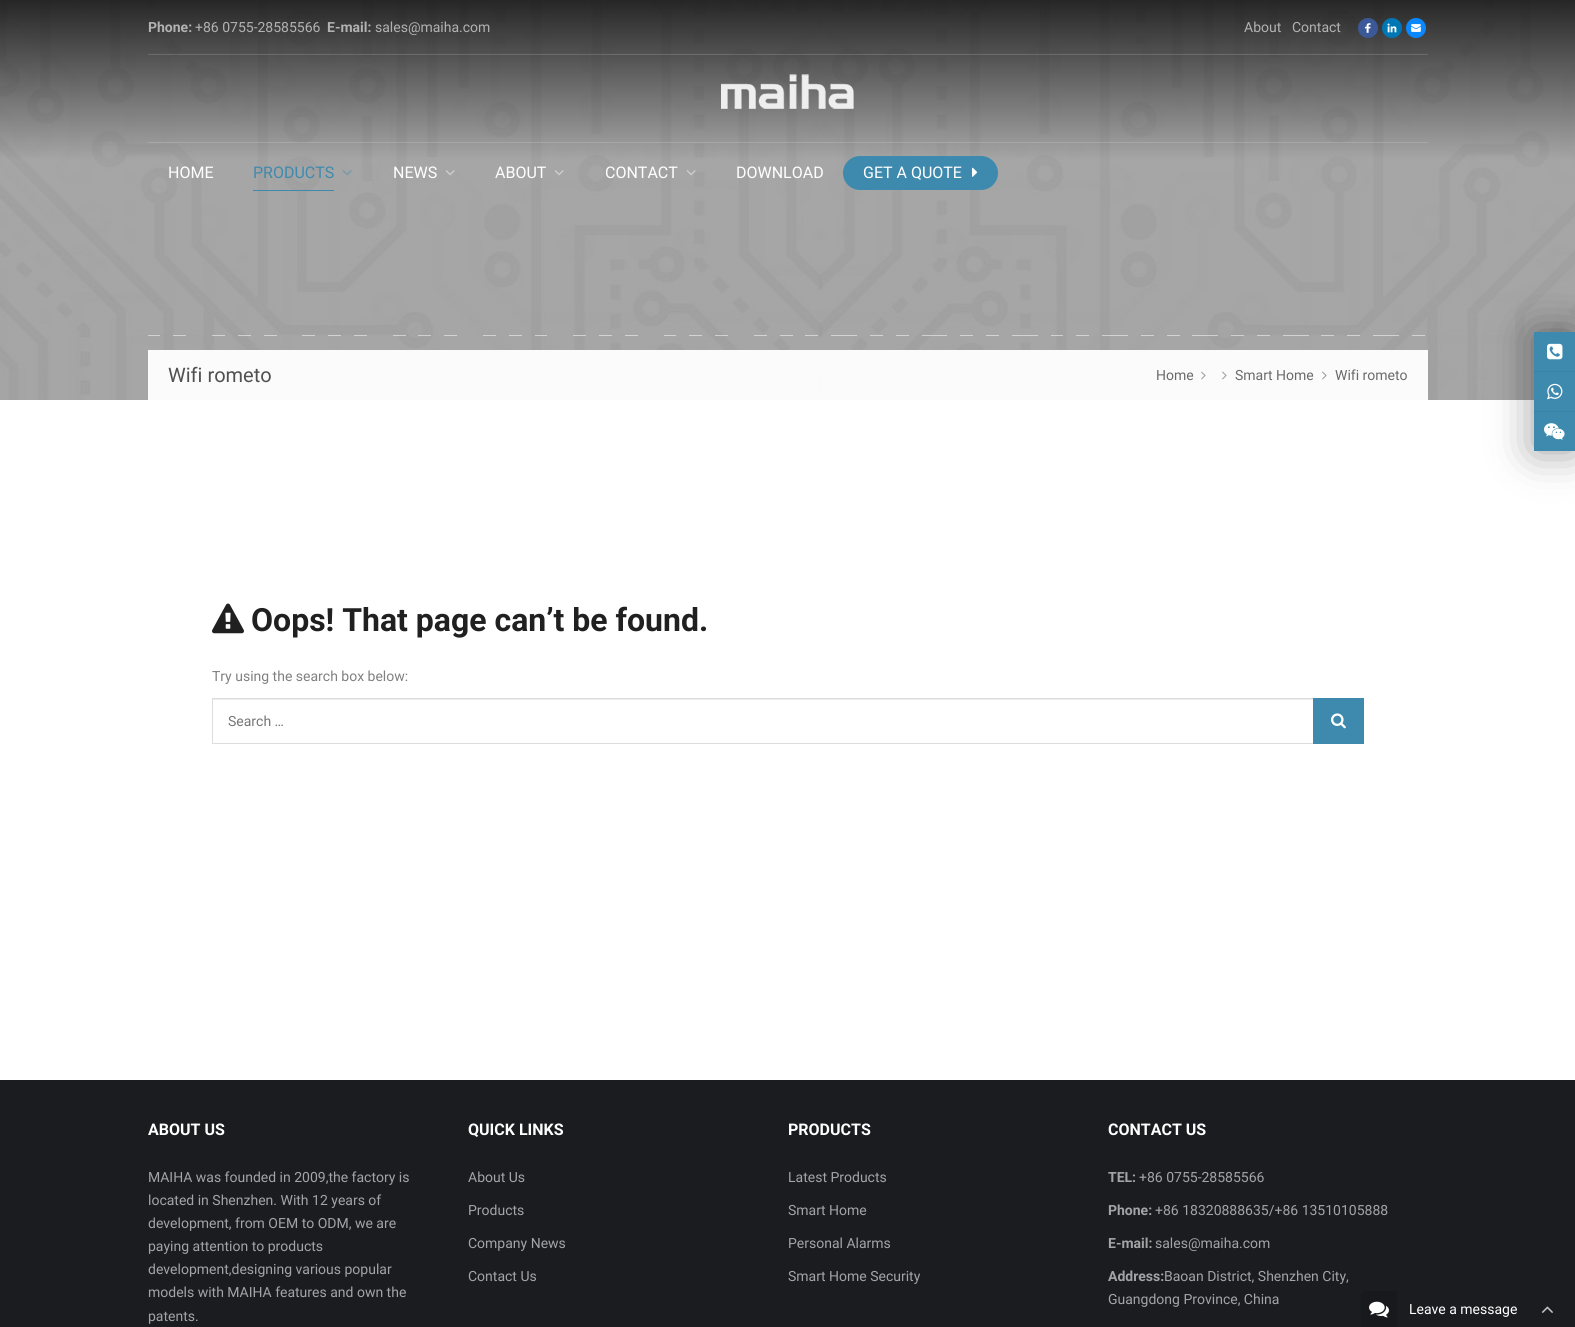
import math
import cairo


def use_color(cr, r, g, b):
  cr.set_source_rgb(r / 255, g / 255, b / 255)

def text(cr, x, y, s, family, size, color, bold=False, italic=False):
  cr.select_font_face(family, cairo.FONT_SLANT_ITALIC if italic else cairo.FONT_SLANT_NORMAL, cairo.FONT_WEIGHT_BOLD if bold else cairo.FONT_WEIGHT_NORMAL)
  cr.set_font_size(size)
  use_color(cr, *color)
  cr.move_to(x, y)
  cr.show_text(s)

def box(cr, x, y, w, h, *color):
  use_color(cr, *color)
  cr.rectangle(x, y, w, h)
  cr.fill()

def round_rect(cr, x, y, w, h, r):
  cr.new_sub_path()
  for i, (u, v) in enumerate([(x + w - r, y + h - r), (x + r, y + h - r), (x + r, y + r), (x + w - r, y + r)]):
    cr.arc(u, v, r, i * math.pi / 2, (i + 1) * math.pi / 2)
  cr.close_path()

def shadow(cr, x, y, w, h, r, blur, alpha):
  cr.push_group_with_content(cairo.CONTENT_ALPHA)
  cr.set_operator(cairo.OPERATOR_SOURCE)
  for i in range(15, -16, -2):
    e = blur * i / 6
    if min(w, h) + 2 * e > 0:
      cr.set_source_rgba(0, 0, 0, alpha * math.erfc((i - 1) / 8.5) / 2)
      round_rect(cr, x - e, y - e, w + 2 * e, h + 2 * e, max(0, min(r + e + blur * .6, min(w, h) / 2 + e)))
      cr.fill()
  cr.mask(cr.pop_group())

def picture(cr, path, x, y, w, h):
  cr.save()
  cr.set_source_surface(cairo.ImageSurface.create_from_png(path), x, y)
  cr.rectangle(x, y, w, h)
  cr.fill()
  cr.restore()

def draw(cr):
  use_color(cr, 255, 255, 255)
  cr.paint()
  picture(cr, "img_01.png", 0, 0, 1575, 400)
  use_color(cr, 59, 89, 152)
  cr.arc(1368, 28, 10, 0, 2 * math.pi)
  cr.fill()
  picture(cr, "img_02.png", 1364, 23, 7, 10)
  use_color(cr, 0, 119, 181)
  cr.arc(1392, 28, 10, 0, 2 * math.pi)
  cr.fill()
  picture(cr, "img_03.png", 1387, 23, 10, 10)
  use_color(cr, 10, 136, 255)
  cr.arc(1416, 28, 10, 0, 2 * math.pi)
  cr.fill()
  picture(cr, "img_04.png", 1411, 24, 10, 8)
  cr.set_source_rgba(1, 1, 1, 0.15)
  cr.rectangle(148, 54, 1280, 1)
  cr.fill()
  picture(cr, "img_05.png", 721, 74, 133, 35)
  cr.rectangle(148, 142, 1280, 1)
  cr.fill()
  box(cr, 253, 190, 81, 1, 62, 138, 174)
  picture(cr, "img_06.png", 342, 170, 10, 6)
  picture(cr, "img_07.png", 445, 170, 10, 6)
  picture(cr, "img_08.png", 554, 170, 10, 6)
  picture(cr, "img_09.png", 686, 170, 10, 6)
  round_rect(cr, 843, 156, 155, 34, 17)
  cr.fill()
  picture(cr, "img_10.png", 972, 167, 6, 10)
  cr.set_source_rgba(1, 1, 1, 0.95)
  cr.rectangle(148, 350, 1280, 50)
  cr.fill()
  picture(cr, "img_11.png", 1201, 371, 5, 9)
  picture(cr, "img_11.png", 1222, 371, 5, 9)
  picture(cr, "img_12.png", 1322, 371, 5, 9)
  use_color(cr, 0, 0, 0)
  shadow(cr, 1534, 332, 41, 119, 0, 21, 0.4)
  box(cr, 1534, 332, 41, 119, 62, 138, 174)
  box(cr, 1534, 371, 41, 1, 59, 131, 165)
  picture(cr, "img_13.png", 1547, 343, 16, 17)
  box(cr, 1534, 411, 41, 1, 59, 131, 165)
  picture(cr, "img_14.png", 1547, 383, 16, 17)
  picture(cr, "img_15.png", 1544, 423, 21, 17)
  picture(cr, "img_16.png", 212, 603, 32, 31)
  box(cr, 213, 699, 1100, 1, 236, 236, 236)
  cr.rectangle(212.5, 698.5, 1151, 45)
  use_color(cr, 221, 221, 221)
  cr.set_line_width(1)
  cr.stroke()
  box(cr, 1313, 698, 51, 46, 62, 138, 174)
  picture(cr, "img_17.png", 1331, 713, 15, 16)
  box(cr, 0, 1080, 1575, 247, 26, 28, 32)
  use_color(cr, 23, 25, 28)
  cr.new_path()
  cr.move_to(1366, 1291)
  cr.line_to(1397, 1291)
  cr.line_to(1397, 1327)
  cr.line_to(1361, 1327)
  cr.line_to(1361, 1296)
  cr.curve_to(1361, 1293, 1363, 1291, 1366, 1291)
  cr.close_path()
  cr.fill()
  picture(cr, "img_18.png", 1369, 1301, 20, 17)
  picture(cr, "img_19.png", 1541, 1306, 12, 7)
  text(cr, 148, 32, "Phone:", "Roboto", 14, (178, 178, 178), bold=True)
  text(cr, 195, 32, "+86 0755-28585566", "Roboto", 14, (178, 178, 178))
  text(cr, 327, 32, "E-mail:", "Roboto", 14, (178, 178, 178), bold=True)
  text(cr, 375, 32, "sales@maiha.com", "Roboto", 14, (178, 178, 178))
  text(cr, 1244, 32, "About", "Roboto", 14, (178, 178, 178))
  text(cr, 1292, 32, "Contact", "Roboto", 14, (178, 178, 178))
  text(cr, 168, 178, "HOME", "Roboto", 16, (255, 255, 255))
  text(cr, 253, 178, "PRODUCTS", "Roboto", 16, (62, 138, 174))
  text(cr, 393, 178, "NEWS", "Roboto", 16, (255, 255, 255))
  text(cr, 495, 178, "ABOUT", "Roboto", 16, (255, 255, 255))
  text(cr, 605, 178, "CONTACT", "Roboto", 16, (255, 255, 255))
  text(cr, 736, 178, "DOWNLOAD", "Roboto", 16, (255, 255, 255))
  text(cr, 863, 178, "GET A QUOTE", "Roboto", 16, (255, 255, 255))
  text(cr, 168, 382, "Wifi rometo", "Roboto", 20, (80, 80, 80))
  text(cr, 1156, 380, "Home", "Roboto", 14, (106, 106, 106))
  text(cr, 1235, 380, "Smart Home", "Roboto", 14, (106, 106, 106))
  text(cr, 1335, 380, "Wifi rometo", "Roboto", 14, (106, 106, 106))
  text(cr, 251, 631, "Oops! That page can’t be found.", "Roboto", 32, (32, 32, 32), bold=True)
  text(cr, 212, 681, "Try using the search box below:", "Roboto", 14, (128, 128, 128))
  text(cr, 228, 726, "Search …", "Roboto", 14, (117, 117, 117))
  text(cr, 148, 1135, "ABOUT US", "Roboto", 16, (255, 255, 255), bold=True)
  text(cr, 148, 1182, "MAIHA was founded in 2009,the factory is", "Roboto", 14, (163, 164, 166))
  text(cr, 148, 1205, "located in Shenzhen. With 12 years of", "Roboto", 14, (163, 164, 166))
  text(cr, 148, 1228, "development, from OEM to ODM, we are", "Roboto", 14, (163, 164, 166))
  text(cr, 148, 1251, "paying attention to products", "Roboto", 14, (163, 164, 166))
  text(cr, 148, 1274, "development,designing various popular", "Roboto", 14, (163, 164, 166))
  text(cr, 148, 1297, "models with MAIHA features and own the", "Roboto", 14, (163, 164, 166))
  text(cr, 148, 1321, "patents.", "Roboto", 14, (163, 164, 166))
  text(cr, 468, 1135, "QUICK LINKS", "Roboto", 16, (255, 255, 255), bold=True)
  text(cr, 468, 1182, "About Us", "Roboto", 14, (163, 164, 166))
  text(cr, 468, 1215, "Products", "Roboto", 14, (163, 164, 166))
  text(cr, 468, 1248, "Company News", "Roboto", 14, (163, 164, 166))
  text(cr, 468, 1281, "Contact Us", "Roboto", 14, (163, 164, 166))
  text(cr, 788, 1135, "PRODUCTS", "Roboto", 16, (255, 255, 255), bold=True)
  text(cr, 788, 1182, "Latest Products", "Roboto", 14, (163, 164, 166))
  text(cr, 788, 1215, "Smart Home", "Roboto", 14, (163, 164, 166))
  text(cr, 788, 1248, "Personal Alarms", "Roboto", 14, (163, 164, 166))
  text(cr, 788, 1281, "Smart Home Security", "Roboto", 14, (163, 164, 166))
  text(cr, 1108, 1135, "CONTACT US", "Roboto", 16, (255, 255, 255), bold=True)
  text(cr, 1108, 1182, "TEL:", "Roboto", 14, (163, 164, 166), bold=True)
  text(cr, 1139, 1182, "+86 0755-28585566", "Roboto", 14, (163, 164, 166))
  text(cr, 1108, 1215, "Phone:", "Roboto", 14, (163, 164, 166), bold=True)
  text(cr, 1155, 1215, "+86 18320888635/+86 13510105888", "Roboto", 14, (163, 164, 166))
  text(cr, 1108, 1248, "E-mail:", "Roboto", 14, (163, 164, 166), bold=True)
  text(cr, 1155, 1248, "sales@maiha.com", "Roboto", 14, (163, 164, 166))
  text(cr, 1108, 1281, "Address:", "Roboto", 14, (163, 164, 166), bold=True)
  text(cr, 1164, 1281, "Baoan District, Shenzhen City,", "Roboto", 14, (163, 164, 166))
  text(cr, 1108, 1304, "Guangdong Province, China", "Roboto", 14, (163, 164, 166))
  text(cr, 1409, 1314, "Leave a message", "Roboto", 14, (255, 255, 255))


surface = cairo.ImageSurface(cairo.FORMAT_RGB24, 1575, 1327)
cr = cairo.Context(surface)
options = cairo.FontOptions()
options.set_hint_metrics(cairo.HINT_METRICS_OFF)
options.set_hint_style(cairo.HINT_STYLE_NONE)
cr.set_font_options(options)
cr.set_miter_limit(4)
draw(cr)
surface.write_to_png("out.png")
